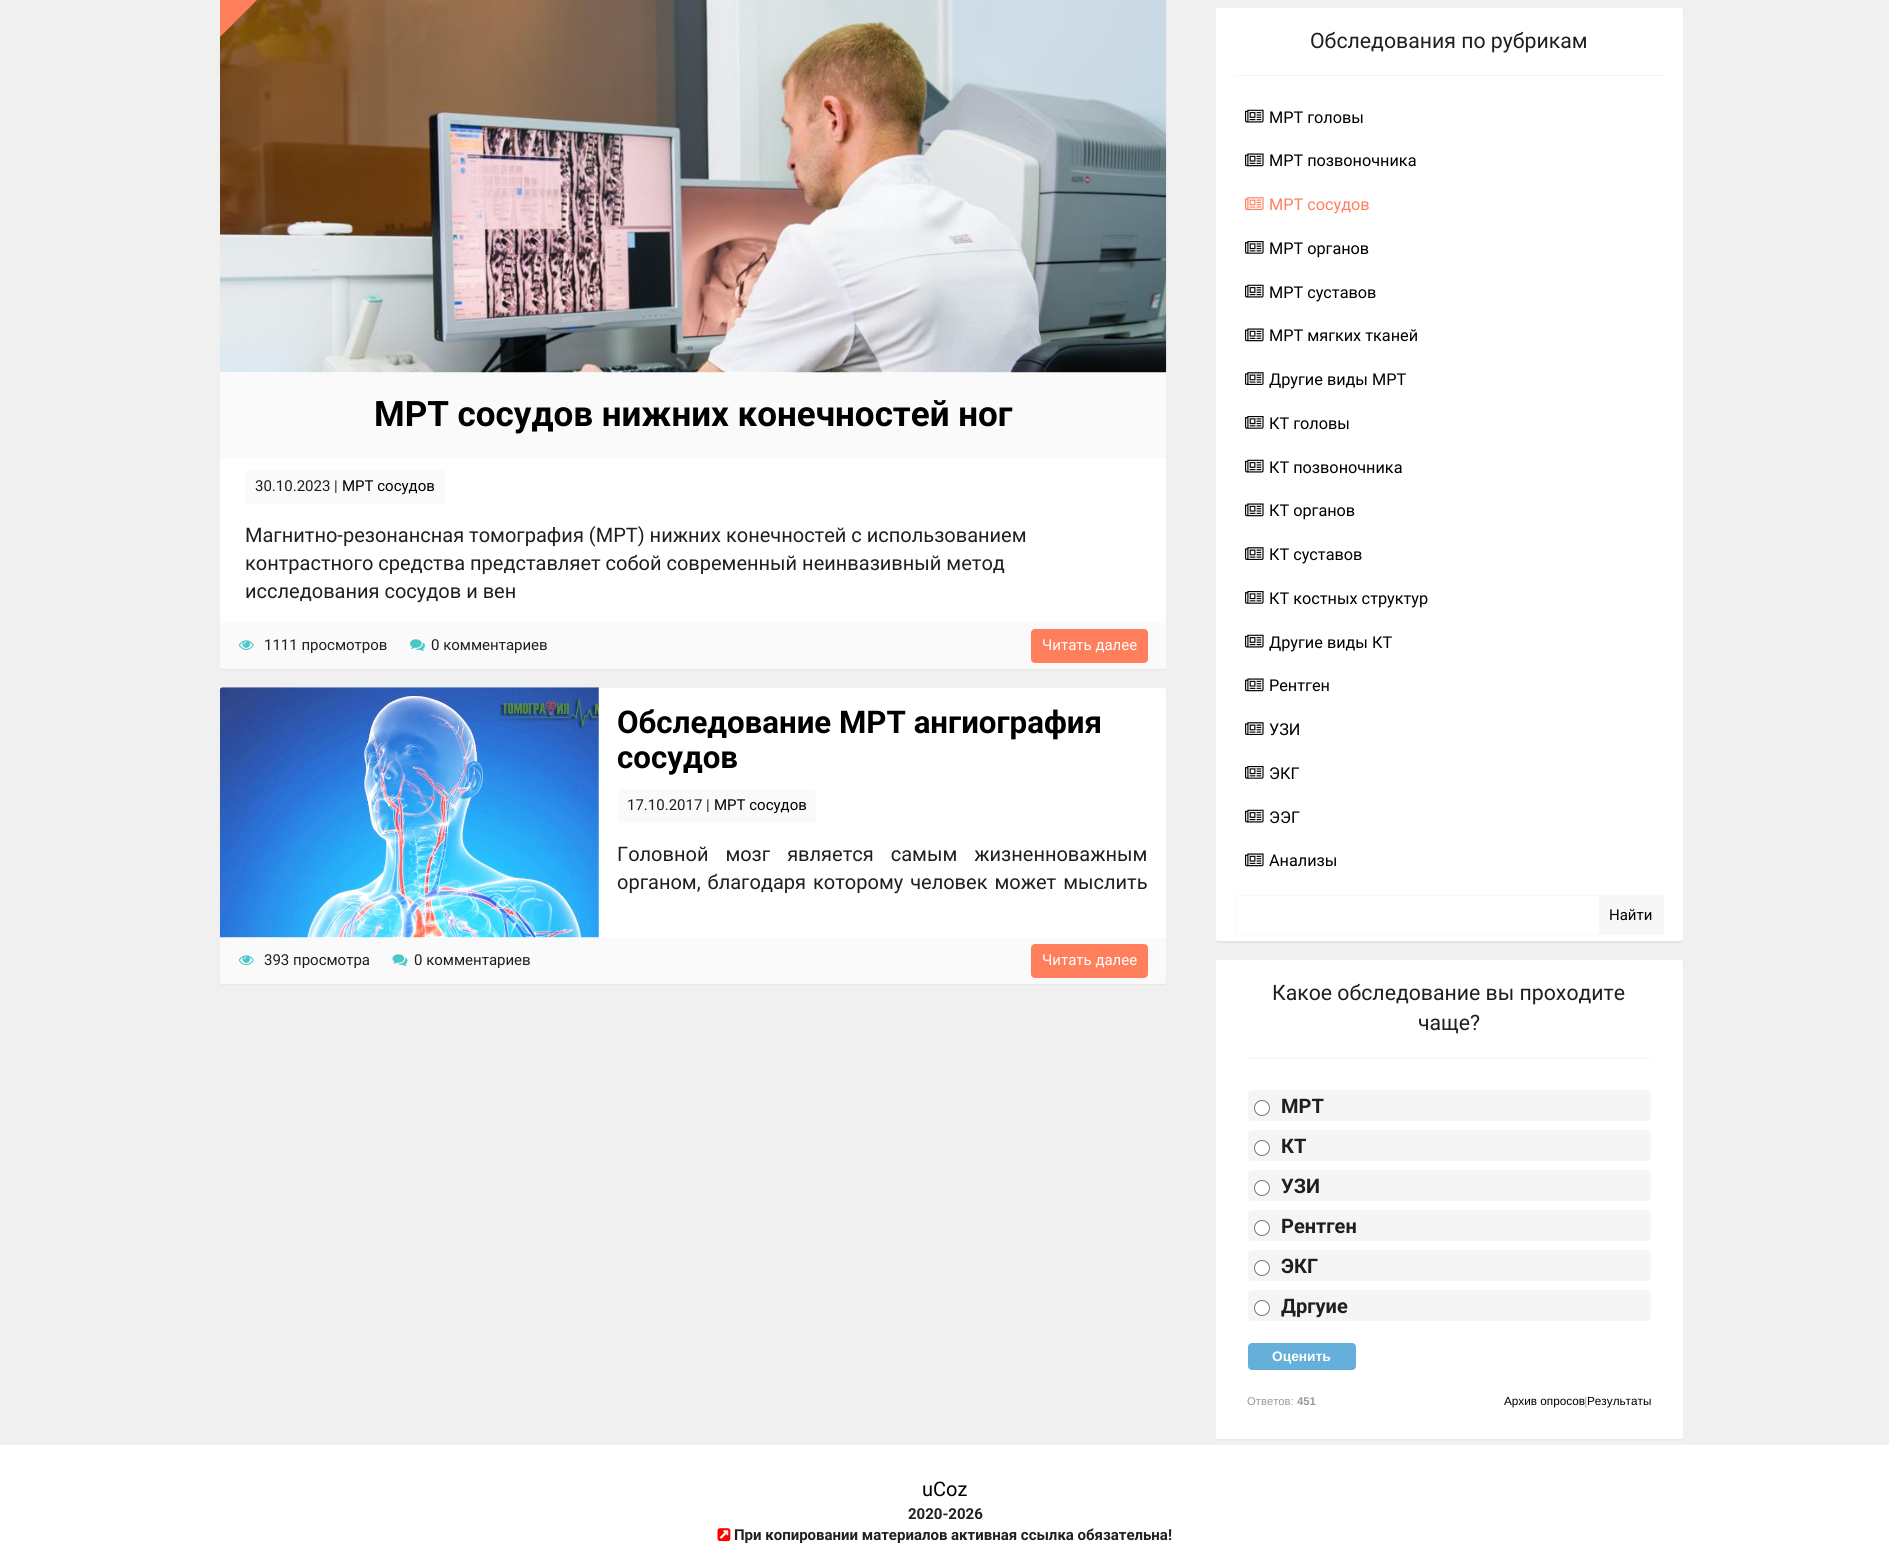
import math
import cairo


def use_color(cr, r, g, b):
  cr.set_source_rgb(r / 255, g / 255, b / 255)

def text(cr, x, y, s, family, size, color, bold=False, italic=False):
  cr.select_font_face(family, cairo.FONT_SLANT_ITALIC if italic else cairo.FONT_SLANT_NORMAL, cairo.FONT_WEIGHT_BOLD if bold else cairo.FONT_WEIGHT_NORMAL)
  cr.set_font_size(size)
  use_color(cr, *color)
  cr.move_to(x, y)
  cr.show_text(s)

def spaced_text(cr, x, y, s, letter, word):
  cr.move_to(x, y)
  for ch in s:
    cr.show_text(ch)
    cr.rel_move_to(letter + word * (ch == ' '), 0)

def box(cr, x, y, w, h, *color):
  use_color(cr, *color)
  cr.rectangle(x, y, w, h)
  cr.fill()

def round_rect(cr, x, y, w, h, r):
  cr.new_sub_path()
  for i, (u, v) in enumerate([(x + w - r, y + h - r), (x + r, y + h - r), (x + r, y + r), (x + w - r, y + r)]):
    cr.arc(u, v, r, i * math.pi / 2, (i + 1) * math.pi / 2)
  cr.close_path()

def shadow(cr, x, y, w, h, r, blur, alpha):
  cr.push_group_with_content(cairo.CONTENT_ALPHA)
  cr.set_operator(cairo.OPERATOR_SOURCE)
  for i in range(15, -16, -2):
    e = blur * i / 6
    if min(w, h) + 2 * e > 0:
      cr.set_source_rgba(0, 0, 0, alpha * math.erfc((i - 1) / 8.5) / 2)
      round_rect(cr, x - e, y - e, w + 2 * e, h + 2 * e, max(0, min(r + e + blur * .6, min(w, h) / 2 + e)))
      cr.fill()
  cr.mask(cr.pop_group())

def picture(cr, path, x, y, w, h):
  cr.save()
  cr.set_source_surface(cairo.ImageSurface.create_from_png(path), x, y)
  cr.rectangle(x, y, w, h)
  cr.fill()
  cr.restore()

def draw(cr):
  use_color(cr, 240, 240, 240)
  cr.paint()
  use_color(cr, 0, 0, 0)
  shadow(cr, 220, -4, 946, 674, 2.5, 0.5, 0.05)
  use_color(cr, 255, 255, 255)
  round_rect(cr, 220, -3, 946, 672, 2.5)
  cr.fill()
  picture(cr, "img_01.png", 220, 0, 947, 373)
  use_color(cr, 255, 127, 92)
  cr.new_path()
  cr.move_to(222, -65)
  cr.line_to(322, -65)
  cr.line_to(220, 37)
  cr.line_to(220, -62)
  cr.curve_to(220, -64, 221, -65, 222, -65)
  cr.close_path()
  cr.fill()
  box(cr, 220, 373, 946, 85, 250, 250, 250)
  round_rect(cr, 245, 470, 200, 34, 2.5)
  cr.fill()
  gradient = cairo.LinearGradient(693, 372, 693, 604)
  gradient.add_color_stop_rgba(0, 1, 1, 1, 0)
  gradient.add_color_stop_rgba(0.88, 1, 1, 1, 0)
  gradient.add_color_stop_rgba(1, 1, 1, 1, 1)
  cr.set_source(gradient)
  cr.rectangle(246, 587, 269, 16)
  cr.fill()
  use_color(cr, 250, 250, 250)
  cr.new_path()
  cr.move_to(220, 623)
  cr.line_to(1166, 623)
  cr.line_to(1166, 666.5)
  cr.curve_to(1166, 668, 1165, 669, 1163.5, 669)
  cr.line_to(222.5, 669)
  cr.curve_to(221, 669, 220, 668, 220, 666.5)
  cr.close_path()
  cr.fill()
  picture(cr, "img_02.png", 238, 640, 16, 10)
  picture(cr, "img_03.png", 410, 639, 15, 12)
  use_color(cr, 255, 127, 92)
  round_rect(cr, 1031, 629, 117, 34, 4)
  cr.fill()
  use_color(cr, 0, 0, 0)
  shadow(cr, 220, 689, 946, 296, 2.5, 0.5, 0.05)
  use_color(cr, 255, 255, 255)
  round_rect(cr, 220, 688, 946, 296, 2.5)
  cr.fill()
  picture(cr, "img_04.png", 220, 687, 379, 251)
  use_color(cr, 250, 250, 250)
  round_rect(cr, 618, 789, 198, 34, 2.5)
  cr.fill()
  gradient = cairo.LinearGradient(883, 688, 883, 919)
  gradient.add_color_stop_rgba(0, 1, 1, 1, 0)
  gradient.add_color_stop_rgba(0.88, 1, 1, 1, 0)
  gradient.add_color_stop_rgba(1, 1, 1, 1, 1)
  cr.set_source(gradient)
  cr.rectangle(630, 892, 268, 2)
  cr.fill()
  use_color(cr, 250, 250, 250)
  cr.new_path()
  cr.move_to(220, 938)
  cr.line_to(1166, 938)
  cr.line_to(1166, 981.5)
  cr.curve_to(1166, 983, 1165, 984, 1163.5, 984)
  cr.line_to(222.5, 984)
  cr.curve_to(221, 984, 220, 983, 220, 981.5)
  cr.close_path()
  cr.fill()
  picture(cr, "img_02.png", 238, 955, 16, 10)
  picture(cr, "img_05.png", 392, 954, 16, 12)
  use_color(cr, 255, 127, 92)
  round_rect(cr, 1031, 944, 117, 34, 4)
  cr.fill()
  use_color(cr, 0, 0, 0)
  shadow(cr, 1216, 9, 467, 934, 2.5, 0.5, 0.05)
  use_color(cr, 255, 255, 255)
  round_rect(cr, 1216, 8, 467, 933, 2.5)
  cr.fill()
  box(cr, 1235, 75, 429, 1, 245, 245, 245)
  picture(cr, "img_06.png", 1245, 109, 19, 14)
  picture(cr, "img_07.png", 1245, 153, 19, 14)
  picture(cr, "img_08.png", 1245, 197, 19, 13)
  picture(cr, "img_09.png", 1245, 241, 19, 13)
  picture(cr, "img_06.png", 1245, 284, 19, 14)
  picture(cr, "img_07.png", 1245, 328, 19, 14)
  picture(cr, "img_10.png", 1245, 372, 19, 13)
  picture(cr, "img_09.png", 1245, 416, 19, 13)
  picture(cr, "img_06.png", 1245, 459, 19, 14)
  picture(cr, "img_07.png", 1245, 503, 19, 14)
  picture(cr, "img_10.png", 1245, 547, 19, 13)
  picture(cr, "img_09.png", 1245, 591, 19, 13)
  picture(cr, "img_06.png", 1245, 634, 19, 14)
  picture(cr, "img_07.png", 1245, 678, 19, 14)
  picture(cr, "img_10.png", 1245, 722, 19, 13)
  picture(cr, "img_09.png", 1245, 766, 19, 13)
  picture(cr, "img_06.png", 1245, 809, 19, 14)
  picture(cr, "img_07.png", 1245, 853, 19, 14)
  round_rect(cr, 1235.5, 895.5, 428, 39, 2)
  use_color(cr, 247, 247, 247)
  cr.set_line_width(1)
  cr.stroke()
  box(cr, 1236, 896, 1, 38, 255, 255, 255)
  box(cr, 1599, 896, 64, 38, 247, 247, 247)
  use_color(cr, 0, 0, 0)
  shadow(cr, 1216, 961, 467, 479, 2.5, 0.5, 0.05)
  use_color(cr, 255, 255, 255)
  round_rect(cr, 1216, 960, 467, 479, 2.5)
  cr.fill()
  box(cr, 1248, 1058, 403, 1, 245, 245, 245)
  round_rect(cr, 1248, 1090, 403, 31, 4)
  cr.fill()
  use_color(cr, 255, 255, 255)
  cr.arc(1262, 1108, 7.5, 0, 2 * math.pi)
  cr.fill_preserve()
  use_color(cr, 118, 118, 118)
  cr.stroke()
  use_color(cr, 245, 245, 245)
  round_rect(cr, 1248, 1130, 403, 31, 4)
  cr.fill()
  use_color(cr, 255, 255, 255)
  cr.arc(1262, 1148, 7.5, 0, 2 * math.pi)
  cr.fill_preserve()
  use_color(cr, 118, 118, 118)
  cr.stroke()
  use_color(cr, 245, 245, 245)
  round_rect(cr, 1248, 1170, 403, 31, 4)
  cr.fill()
  use_color(cr, 255, 255, 255)
  cr.arc(1262, 1188, 7.5, 0, 2 * math.pi)
  cr.fill_preserve()
  use_color(cr, 118, 118, 118)
  cr.stroke()
  use_color(cr, 245, 245, 245)
  round_rect(cr, 1248, 1210, 403, 31, 4)
  cr.fill()
  use_color(cr, 255, 255, 255)
  cr.arc(1262, 1228, 7.5, 0, 2 * math.pi)
  cr.fill_preserve()
  use_color(cr, 118, 118, 118)
  cr.stroke()
  use_color(cr, 245, 245, 245)
  round_rect(cr, 1248, 1250, 403, 31, 4)
  cr.fill()
  use_color(cr, 255, 255, 255)
  cr.arc(1262, 1268, 7.5, 0, 2 * math.pi)
  cr.fill_preserve()
  use_color(cr, 118, 118, 118)
  cr.stroke()
  use_color(cr, 245, 245, 245)
  round_rect(cr, 1248, 1290, 403, 31, 4)
  cr.fill()
  use_color(cr, 255, 255, 255)
  cr.arc(1262, 1308, 7.5, 0, 2 * math.pi)
  cr.fill_preserve()
  use_color(cr, 118, 118, 118)
  cr.stroke()
  use_color(cr, 100, 176, 219)
  round_rect(cr, 1248, 1343, 108, 27, 4)
  cr.fill()
  box(cr, 0, 1445, 1889, 102, 255, 255, 255)
  picture(cr, "img_11.png", 717, 1528, 14, 14)
  text(cr, 374, 426, "МРТ сосудов нижних конечностей ног", "Roboto", 35, (0, 0, 0), bold=True)
  text(cr, 255, 491, "30.10.2023 |", "Roboto", 15, (30, 31, 35))
  text(cr, 342, 491, "МРТ сосудов", "Roboto", 15, (0, 0, 0))
  text(cr, 245, 542, "Магнитно-резонансная томография (МРТ) нижних конечностей с использованием", "Roboto", 20, (30, 31, 35))
  text(cr, 245, 570, "контрастного средства представляет собой современный неинвазивный метод", "Roboto", 20, (30, 31, 35))
  text(cr, 245, 598, "исследования сосудов и вен", "Roboto", 20, (30, 31, 35))
  text(cr, 264, 650, "1111 просмотров", "Roboto", 15, (30, 31, 35))
  text(cr, 431, 650, "0 комментариев", "Roboto", 15, (30, 31, 35))
  text(cr, 1042, 650, "Читать далее", "Roboto", 15, (255, 255, 255))
  text(cr, 617, 733, "Обследование МРТ ангиография", "Roboto", 31.25, (0, 0, 0), bold=True)
  text(cr, 617, 768, "сосудов", "Roboto", 31.25, (0, 0, 0), bold=True)
  text(cr, 627, 810, "17.10.2017 |", "Roboto", 15, (30, 31, 35))
  text(cr, 714, 810, "МРТ сосудов", "Roboto", 15, (0, 0, 0))
  cr.set_font_size(20)
  use_color(cr, 30, 31, 35)
  spaced_text(cr, 617, 861, "Головной мозг является самым жизненноважным", 0, 12)
  spaced_text(cr, 617, 889, "органом, благодаря которому человек может мыслить", 0, 2)
  text(cr, 264, 965, "393 просмотра", "Roboto", 15, (30, 31, 35))
  text(cr, 414, 965, "0 комментариев", "Roboto", 15, (30, 31, 35))
  text(cr, 1042, 965, "Читать далее", "Roboto", 15, (255, 255, 255))
  text(cr, 1310, 48, "Обследования по рубрикам", "Roboto", 21.25, (30, 31, 35))
  text(cr, 1269, 123, "МРТ головы", "Roboto", 16.25, (0, 0, 0))
  text(cr, 1269, 166, "МРТ позвоночника", "Roboto", 16.25, (0, 0, 0))
  text(cr, 1269, 210, "МРТ сосудов", "Roboto", 16.25, (255, 127, 92))
  text(cr, 1269, 254, "МРТ органов", "Roboto", 16.25, (0, 0, 0))
  text(cr, 1269, 298, "МРТ суставов", "Roboto", 16.25, (0, 0, 0))
  text(cr, 1269, 341, "МРТ мягких тканей", "Roboto", 16.25, (0, 0, 0))
  text(cr, 1269, 385, "Другие виды МРТ", "Roboto", 16.25, (0, 0, 0))
  text(cr, 1269, 429, "КТ головы", "Roboto", 16.25, (0, 0, 0))
  text(cr, 1269, 473, "КТ позвоночника", "Roboto", 16.25, (0, 0, 0))
  text(cr, 1269, 516, "КТ органов", "Roboto", 16.25, (0, 0, 0))
  text(cr, 1269, 560, "КТ суставов", "Roboto", 16.25, (0, 0, 0))
  text(cr, 1269, 604, "КТ костных структур", "Roboto", 16.25, (0, 0, 0))
  text(cr, 1269, 648, "Другие виды КТ", "Roboto", 16.25, (0, 0, 0))
  text(cr, 1269, 691, "Рентген", "Roboto", 16.25, (0, 0, 0))
  text(cr, 1269, 735, "УЗИ", "Roboto", 16.25, (0, 0, 0))
  text(cr, 1269, 779, "ЭКГ", "Roboto", 16.25, (0, 0, 0))
  text(cr, 1269, 823, "ЭЭГ", "Roboto", 16.25, (0, 0, 0))
  text(cr, 1269, 866, "Анализы", "Roboto", 16.25, (0, 0, 0))
  text(cr, 1609, 920, "Найти", "Roboto", 15, (0, 0, 0))
  text(cr, 1272, 1000, "Какое обследование вы проходите", "Roboto", 21.25, (30, 31, 35))
  text(cr, 1418, 1030, "чаще?", "Roboto", 21.25, (30, 31, 35))
  text(cr, 1281, 1113, "МРТ", "Roboto", 20, (30, 31, 35), bold=True)
  text(cr, 1281, 1153, "КТ", "Roboto", 20, (30, 31, 35), bold=True)
  text(cr, 1281, 1193, "УЗИ", "Roboto", 20, (30, 31, 35), bold=True)
  text(cr, 1281, 1233, "Рентген", "Roboto", 20, (30, 31, 35), bold=True)
  text(cr, 1281, 1273, "ЭКГ", "Roboto", 20, (30, 31, 35), bold=True)
  text(cr, 1281, 1313, "Дргуие", "Roboto", 20, (30, 31, 35), bold=True)
  text(cr, 1272, 1361, "Оценить", "Liberation Sans", 13.75, (255, 255, 255), bold=True)
  text(cr, 1247, 1405, "Ответов:", "Liberation Sans", 11.25, (153, 153, 153))
  text(cr, 1297, 1405, "451", "Liberation Sans", 11.25, (153, 153, 153), bold=True)
  text(cr, 1504, 1405, "Архив опросов", "Liberation Sans", 11.75, (0, 0, 0))
  text(cr, 1584, 1405, "|", "Liberation Sans", 11.25, (182, 192, 205), bold=True)
  text(cr, 1587, 1405, "Результаты", "Liberation Sans", 11.75, (0, 0, 0))
  text(cr, 922, 1496, "uCoz", "Roboto", 20, (0, 0, 0))
  text(cr, 908, 1519, "2020-2026", "Roboto", 15, (30, 31, 35), bold=True)
  text(cr, 734, 1540, "При копировании материалов активная ссылка обязательна!", "Roboto", 15, (30, 31, 35), bold=True)


surface = cairo.ImageSurface(cairo.FORMAT_RGB24, 1889, 1547)
cr = cairo.Context(surface)
options = cairo.FontOptions()
options.set_hint_metrics(cairo.HINT_METRICS_OFF)
options.set_hint_style(cairo.HINT_STYLE_NONE)
cr.set_font_options(options)
cr.set_miter_limit(4)
draw(cr)
surface.write_to_png("out.png")
